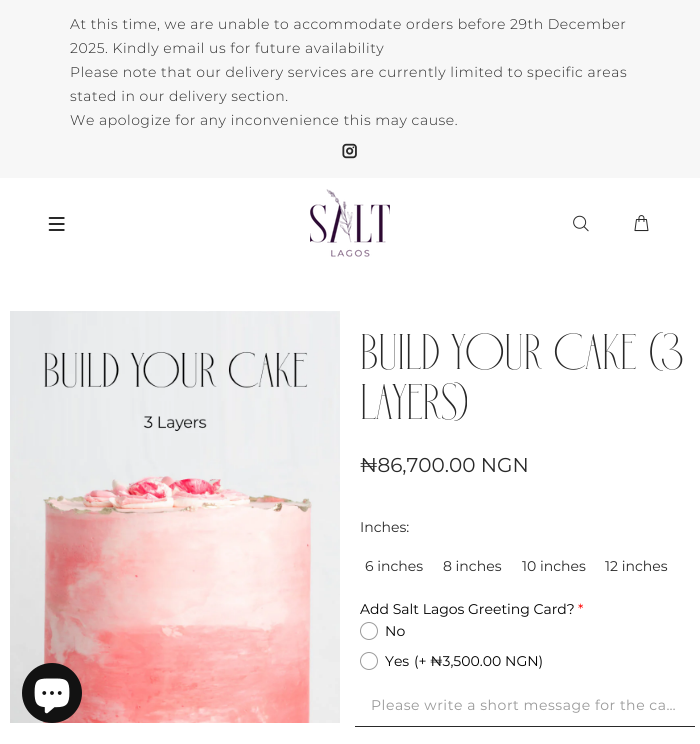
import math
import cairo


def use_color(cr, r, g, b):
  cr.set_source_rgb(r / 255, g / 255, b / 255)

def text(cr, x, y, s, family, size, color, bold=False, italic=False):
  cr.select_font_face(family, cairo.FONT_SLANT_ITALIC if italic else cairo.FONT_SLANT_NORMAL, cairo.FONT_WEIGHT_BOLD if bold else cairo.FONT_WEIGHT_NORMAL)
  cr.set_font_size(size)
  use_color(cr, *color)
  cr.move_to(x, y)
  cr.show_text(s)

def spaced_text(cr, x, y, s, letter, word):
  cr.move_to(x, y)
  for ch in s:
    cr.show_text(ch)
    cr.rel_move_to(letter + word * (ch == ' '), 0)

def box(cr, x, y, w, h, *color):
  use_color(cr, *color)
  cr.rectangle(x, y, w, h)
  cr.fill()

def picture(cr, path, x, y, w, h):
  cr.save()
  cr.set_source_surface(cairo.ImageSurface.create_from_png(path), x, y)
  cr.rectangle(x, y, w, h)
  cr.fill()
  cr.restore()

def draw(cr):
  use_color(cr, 255, 255, 255)
  cr.paint()
  box(cr, 0, 0, 700, 178, 247, 247, 247)
  picture(cr, "img_01.png", 342, 143, 15, 16)
  picture(cr, "img_02.png", 48, 217, 17, 14)
  picture(cr, "img_03.png", 310, 189, 80, 68)
  picture(cr, "img_04.png", 573, 215, 16, 17)
  picture(cr, "img_05.png", 634, 215, 15, 17)
  picture(cr, "img_07.png", 10, 311, 330, 412)
  use_color(cr, 18, 18, 18)
  cr.arc(52, 693, 30, 0, 2 * math.pi)
  cr.fill()
  picture(cr, "img_06.png", 34, 678, 36, 36)
  cr.arc(369, 631, 8.5, 0, 2 * math.pi)
  use_color(cr, 154, 154, 154)
  cr.set_line_width(1)
  cr.stroke()
  cr.arc(369, 661, 8.5, 0, 2 * math.pi)
  cr.stroke()
  box(cr, 355, 726, 340, 1, 41, 41, 41)
  cr.select_font_face("Montserrat Light")
  cr.set_font_size(14)
  spaced_text(cr, 70, 29, "At this time, we are unable to accommodate orders before 29th December", 0.55, 0)
  spaced_text(cr, 70, 53, "2025. Kindly email us for future availability", 0.55, 0)
  spaced_text(cr, 70, 77, "Please note that our delivery services are currently limited to specific areas", 0.55, 0)
  spaced_text(cr, 70, 101, "stated in our delivery section.", 0.55, 0)
  spaced_text(cr, 70, 125, "We apologize for any inconvenience this may cause.", 0.55, 0)
  text(cr, 360, 369, "BUILD YOUR CAKE (3", "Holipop", 50, (41, 41, 41))
  text(cr, 360, 419, "LAYERS)", "Holipop", 50, (41, 41, 41))
  text(cr, 360, 472, "₦86,700.00 NGN", "Montserrat Thin", 20, (41, 41, 41))
  text(cr, 360, 532, "Inches:", "Montserrat Thin", 14, (41, 41, 41))
  text(cr, 365, 571, "6 inches", "Montserrat Thin", 14, (41, 41, 41))
  text(cr, 443, 571, "8 inches", "Montserrat Thin", 14, (41, 41, 41))
  text(cr, 522, 571, "10 inches", "Montserrat Thin", 14, (41, 41, 41))
  text(cr, 605, 571, "12 inches", "Montserrat Thin", 14, (41, 41, 41))
  text(cr, 360, 614, "Add Salt Lagos Greeting Card?", "Montserrat Thin", 14, (0, 0, 0))
  text(cr, 578, 614, "*", "Montserrat Thin", 14, (255, 0, 0))
  text(cr, 385, 636, "No", "Montserrat Thin", 14, (0, 0, 0))
  text(cr, 385, 666, "Yes", "Montserrat Thin", 14, (0, 0, 0))
  text(cr, 414, 666, "(+ ₦3,500.00 NGN)", "Montserrat Thin", 14, (0, 0, 0))
  use_color(cr, 153, 153, 153)
  spaced_text(cr, 371, 710, "Please write a short message for the ca…", 0.55, 0)


surface = cairo.ImageSurface(cairo.FORMAT_RGB24, 700, 744)
cr = cairo.Context(surface)
options = cairo.FontOptions()
options.set_hint_metrics(cairo.HINT_METRICS_OFF)
options.set_hint_style(cairo.HINT_STYLE_NONE)
cr.set_font_options(options)
cr.set_miter_limit(4)
draw(cr)
surface.write_to_png("out.png")
